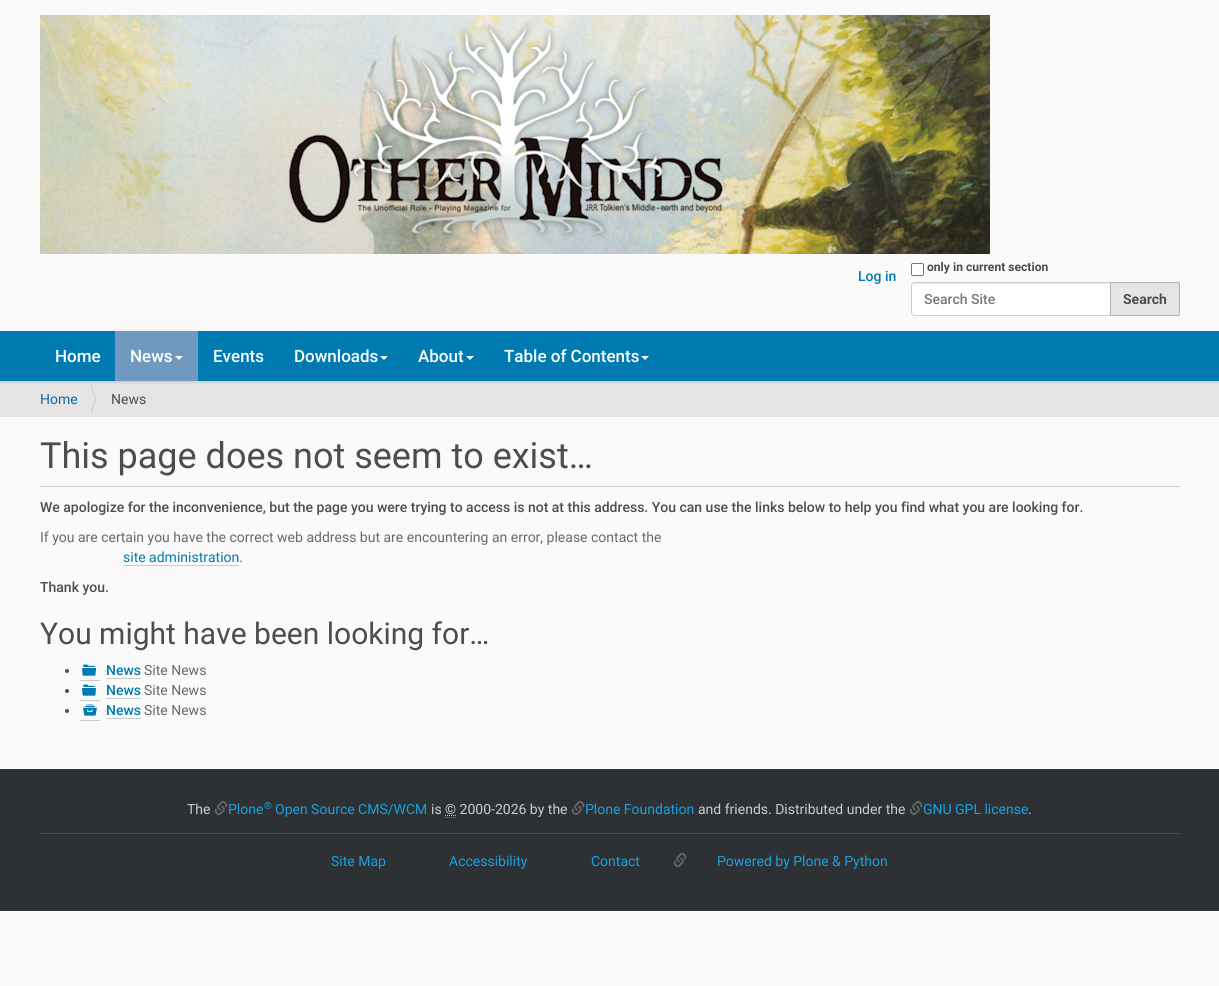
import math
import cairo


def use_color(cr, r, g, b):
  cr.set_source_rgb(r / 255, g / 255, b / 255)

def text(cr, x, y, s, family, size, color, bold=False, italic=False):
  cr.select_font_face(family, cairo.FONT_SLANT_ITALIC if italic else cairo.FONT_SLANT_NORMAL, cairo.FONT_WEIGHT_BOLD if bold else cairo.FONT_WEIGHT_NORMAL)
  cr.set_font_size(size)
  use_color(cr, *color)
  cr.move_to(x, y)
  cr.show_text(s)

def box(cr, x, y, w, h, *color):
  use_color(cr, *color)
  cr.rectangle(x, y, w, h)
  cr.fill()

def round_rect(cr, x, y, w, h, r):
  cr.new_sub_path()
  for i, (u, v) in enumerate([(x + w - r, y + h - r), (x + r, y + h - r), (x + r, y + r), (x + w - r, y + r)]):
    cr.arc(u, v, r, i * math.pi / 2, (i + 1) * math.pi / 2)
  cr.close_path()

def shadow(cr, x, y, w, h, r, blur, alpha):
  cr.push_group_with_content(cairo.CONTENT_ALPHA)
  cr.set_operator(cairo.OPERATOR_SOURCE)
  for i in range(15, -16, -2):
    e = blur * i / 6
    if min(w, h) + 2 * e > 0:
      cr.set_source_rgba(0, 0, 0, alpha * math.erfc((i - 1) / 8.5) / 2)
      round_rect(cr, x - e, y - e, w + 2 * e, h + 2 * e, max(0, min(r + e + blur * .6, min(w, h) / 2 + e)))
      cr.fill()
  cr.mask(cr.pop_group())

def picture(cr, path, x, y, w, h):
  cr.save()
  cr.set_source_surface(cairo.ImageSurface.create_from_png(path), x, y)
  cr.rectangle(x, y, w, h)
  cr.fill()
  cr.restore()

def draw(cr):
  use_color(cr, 250, 250, 250)
  cr.paint()
  picture(cr, "img_01.png", 40, 15, 950, 239)
  use_color(cr, 255, 255, 255)
  round_rect(cr, 911.5, 263.5, 12, 12, 1.5)
  cr.fill_preserve()
  use_color(cr, 118, 118, 118)
  cr.set_line_width(1)
  cr.stroke()
  use_color(cr, 255, 255, 255)
  cr.new_path()
  cr.move_to(915, 282)
  cr.line_to(1111, 282)
  cr.line_to(1111, 316)
  cr.line_to(915, 316)
  cr.curve_to(913, 316, 911, 314, 911, 312)
  cr.line_to(911, 286)
  cr.curve_to(911, 284, 913, 282, 915, 282)
  cr.close_path()
  cr.fill()
  use_color(cr, 236, 236, 236)
  cr.new_path()
  cr.move_to(915, 284)
  cr.line_to(1110, 284)
  cr.line_to(1110, 283)
  cr.line_to(915, 283)
  cr.curve_to(913, 283, 912, 285, 912, 287)
  cr.curve_to(912, 285, 913, 284, 915, 284)
  cr.close_path()
  cr.fill()
  cr.new_path()
  cr.move_to(915, 282.5)
  cr.line_to(1110.5, 282.5)
  cr.line_to(1110.5, 315.5)
  cr.line_to(915, 315.5)
  cr.curve_to(913, 315.5, 911.5, 314, 911.5, 312)
  cr.line_to(911.5, 286)
  cr.curve_to(911.5, 284, 913, 282.5, 915, 282.5)
  cr.close_path()
  use_color(cr, 204, 204, 204)
  cr.stroke()
  use_color(cr, 229, 229, 229)
  round_rect(cr, 1110.5, 282.5, 69, 33, 1.5)
  cr.fill_preserve()
  use_color(cr, 178, 178, 178)
  cr.stroke()
  box(cr, 0, 381, 1219, 36, 230, 228, 228)
  use_color(cr, 0, 0, 0)
  shadow(cr, 0, 332, 1219, 50, 0, 1.5, 0.17)
  box(cr, 0, 331, 1219, 50, 0, 123, 177)
  box(cr, 115, 331, 83, 50, 112, 153, 191)
  use_color(cr, 255, 255, 255)
  cr.new_path()
  cr.move_to(175, 356)
  cr.line_to(183, 356)
  cr.line_to(179, 360)
  cr.close_path()
  cr.fill()
  cr.new_path()
  cr.move_to(380, 356)
  cr.line_to(388, 356)
  cr.line_to(384, 360)
  cr.close_path()
  cr.fill()
  cr.new_path()
  cr.move_to(466, 356)
  cr.line_to(474, 356)
  cr.line_to(470, 360)
  cr.close_path()
  cr.fill()
  cr.new_path()
  cr.move_to(641, 356)
  cr.line_to(649, 356)
  cr.line_to(645, 360)
  cr.close_path()
  cr.fill()
  use_color(cr, 204, 204, 204)
  cr.new_path()
  cr.move_to(91, 414)
  cr.line_to(91, 384)
  cr.line_to(96, 399)
  cr.close_path()
  cr.fill()
  use_color(cr, 230, 228, 228)
  cr.new_path()
  cr.move_to(90, 414)
  cr.line_to(90, 384)
  cr.line_to(95, 399)
  cr.close_path()
  cr.fill()
  box(cr, 40, 486, 1140, 1, 204, 204, 204)
  box(cr, 123, 565, 116, 1, 204, 204, 204)
  use_color(cr, 77, 77, 77)
  cr.arc(67, 671, 2, 0, 2 * math.pi)
  cr.fill()
  box(cr, 80, 680, 20, 1, 204, 204, 204)
  box(cr, 106, 678, 35, 1, 204, 204, 204)
  picture(cr, "img_02.png", 82, 664, 14, 12)
  use_color(cr, 77, 77, 77)
  cr.arc(67, 691, 2, 0, 2 * math.pi)
  cr.fill()
  box(cr, 80, 700, 20, 1, 204, 204, 204)
  box(cr, 106, 698, 35, 1, 204, 204, 204)
  picture(cr, "img_02.png", 82, 684, 14, 12)
  use_color(cr, 77, 77, 77)
  cr.arc(67, 711, 2, 0, 2 * math.pi)
  cr.fill()
  box(cr, 80, 720, 20, 1, 204, 204, 204)
  box(cr, 106, 718, 35, 1, 204, 204, 204)
  picture(cr, "img_03.png", 83, 704, 14, 12)
  box(cr, 0, 769, 1219, 142, 46, 49, 51)
  box(cr, 40, 833, 1140, 1, 77, 77, 77)
  picture(cr, "img_04.png", 214, 800, 14, 16)
  picture(cr, "img_04.png", 571, 800, 14, 16)
  picture(cr, "img_04.png", 909, 800, 14, 16)
  cr.new_path()
  cr.move_to(445, 815.5)
  cr.line_to(456, 815.5)
  use_color(cr, 204, 204, 204)
  cr.set_dash([1, 1])
  cr.stroke()
  cr.new_path()
  cr.move_to(445, 817.5)
  cr.line_to(456, 817.5)
  use_color(cr, 119, 119, 119)
  cr.stroke()
  picture(cr, "img_04.png", 673, 852, 14, 16)
  text(cr, 858, 281, "Log in", "Roboto Medium", 14, (0, 123, 177))
  text(cr, 927, 271, "only in current section", "Roboto", 12.1, (77, 77, 77), bold=True)
  text(cr, 924, 304, "Search Site", "Roboto Medium", 14, (119, 119, 119))
  text(cr, 1123, 304, "Search", "Roboto", 14, (77, 77, 77), bold=True)
  text(cr, 55, 362, "Home", "Roboto Medium", 17, (255, 255, 255))
  text(cr, 130, 362, "News", "Roboto Medium", 17, (255, 255, 255))
  text(cr, 213, 362, "Events", "Roboto Medium", 17, (255, 255, 255))
  text(cr, 294, 362, "Downloads", "Roboto Medium", 17, (255, 255, 255))
  text(cr, 418, 362, "About", "Roboto Medium", 17, (255, 255, 255))
  text(cr, 504, 362, "Table of Contents", "Roboto Medium", 17, (255, 255, 255))
  text(cr, 40, 404, "Home", "Roboto", 14, (8, 108, 163))
  text(cr, 111, 404, "News", "Roboto", 14, (77, 77, 77))
  text(cr, 40, 468, "This page does not seem to exist…", "Roboto", 36, (77, 77, 77))
  text(cr, 40, 512, "We apologize for the inconvenience, but the page you were trying to access is not at this address. You can use the links below to help you find what you are looking for.", "Roboto Medium", 14, (77, 77, 77))
  text(cr, 40, 542, "If you are certain you have the correct web address but are encountering an error, please contact the", "Roboto", 14, (105, 105, 105))
  text(cr, 123, 562, "site administration", "Roboto", 14, (0, 123, 177))
  text(cr, 239, 562, ".", "Roboto", 14, (105, 105, 105))
  text(cr, 40, 592, "Thank you.", "Roboto Medium", 14, (77, 77, 77))
  text(cr, 40, 644, "You might have been looking for…", "Roboto", 30, (77, 77, 77))
  text(cr, 106, 675, "News", "Roboto Medium", 14, (0, 123, 177))
  text(cr, 144, 675, "Site News", "Roboto", 14, (105, 105, 105))
  text(cr, 106, 695, "News", "Roboto Medium", 14, (0, 123, 177))
  text(cr, 144, 695, "Site News", "Roboto", 14, (105, 105, 105))
  text(cr, 106, 715, "News", "Roboto Medium", 14, (0, 123, 177))
  text(cr, 144, 715, "Site News", "Roboto", 14, (105, 105, 105))
  text(cr, 187, 814, "The", "Roboto", 14, (204, 204, 204))
  text(cr, 228, 814, "Plone", "Roboto", 14, (22, 161, 227))
  text(cr, 264, 809, "®", "Roboto", 10, (22, 161, 227))
  text(cr, 275, 814, "Open Source CMS/WCM", "Roboto", 14, (22, 161, 227))
  text(cr, 431, 814, "is © 2000-2026 by the", "Roboto", 14, (204, 204, 204))
  text(cr, 585, 814, "Plone Foundation", "Roboto", 14, (22, 161, 227))
  text(cr, 698, 814, "and friends. Distributed under the", "Roboto", 14, (204, 204, 204))
  text(cr, 923, 814, "GNU GPL license", "Roboto", 14, (22, 161, 227))
  text(cr, 1028, 814, ".", "Roboto", 14, (204, 204, 204))
  text(cr, 331, 866, "Site Map", "Roboto", 14, (22, 161, 227))
  text(cr, 449, 866, "Accessibility", "Roboto", 14, (22, 161, 227))
  text(cr, 591, 866, "Contact", "Roboto", 14, (22, 161, 227))
  text(cr, 717, 866, "Powered by Plone & Python", "Roboto", 14, (22, 161, 227))


surface = cairo.ImageSurface(cairo.FORMAT_RGB24, 1219, 986)
cr = cairo.Context(surface)
options = cairo.FontOptions()
options.set_hint_metrics(cairo.HINT_METRICS_OFF)
options.set_hint_style(cairo.HINT_STYLE_NONE)
cr.set_font_options(options)
cr.set_miter_limit(4)
draw(cr)
surface.write_to_png("out.png")
